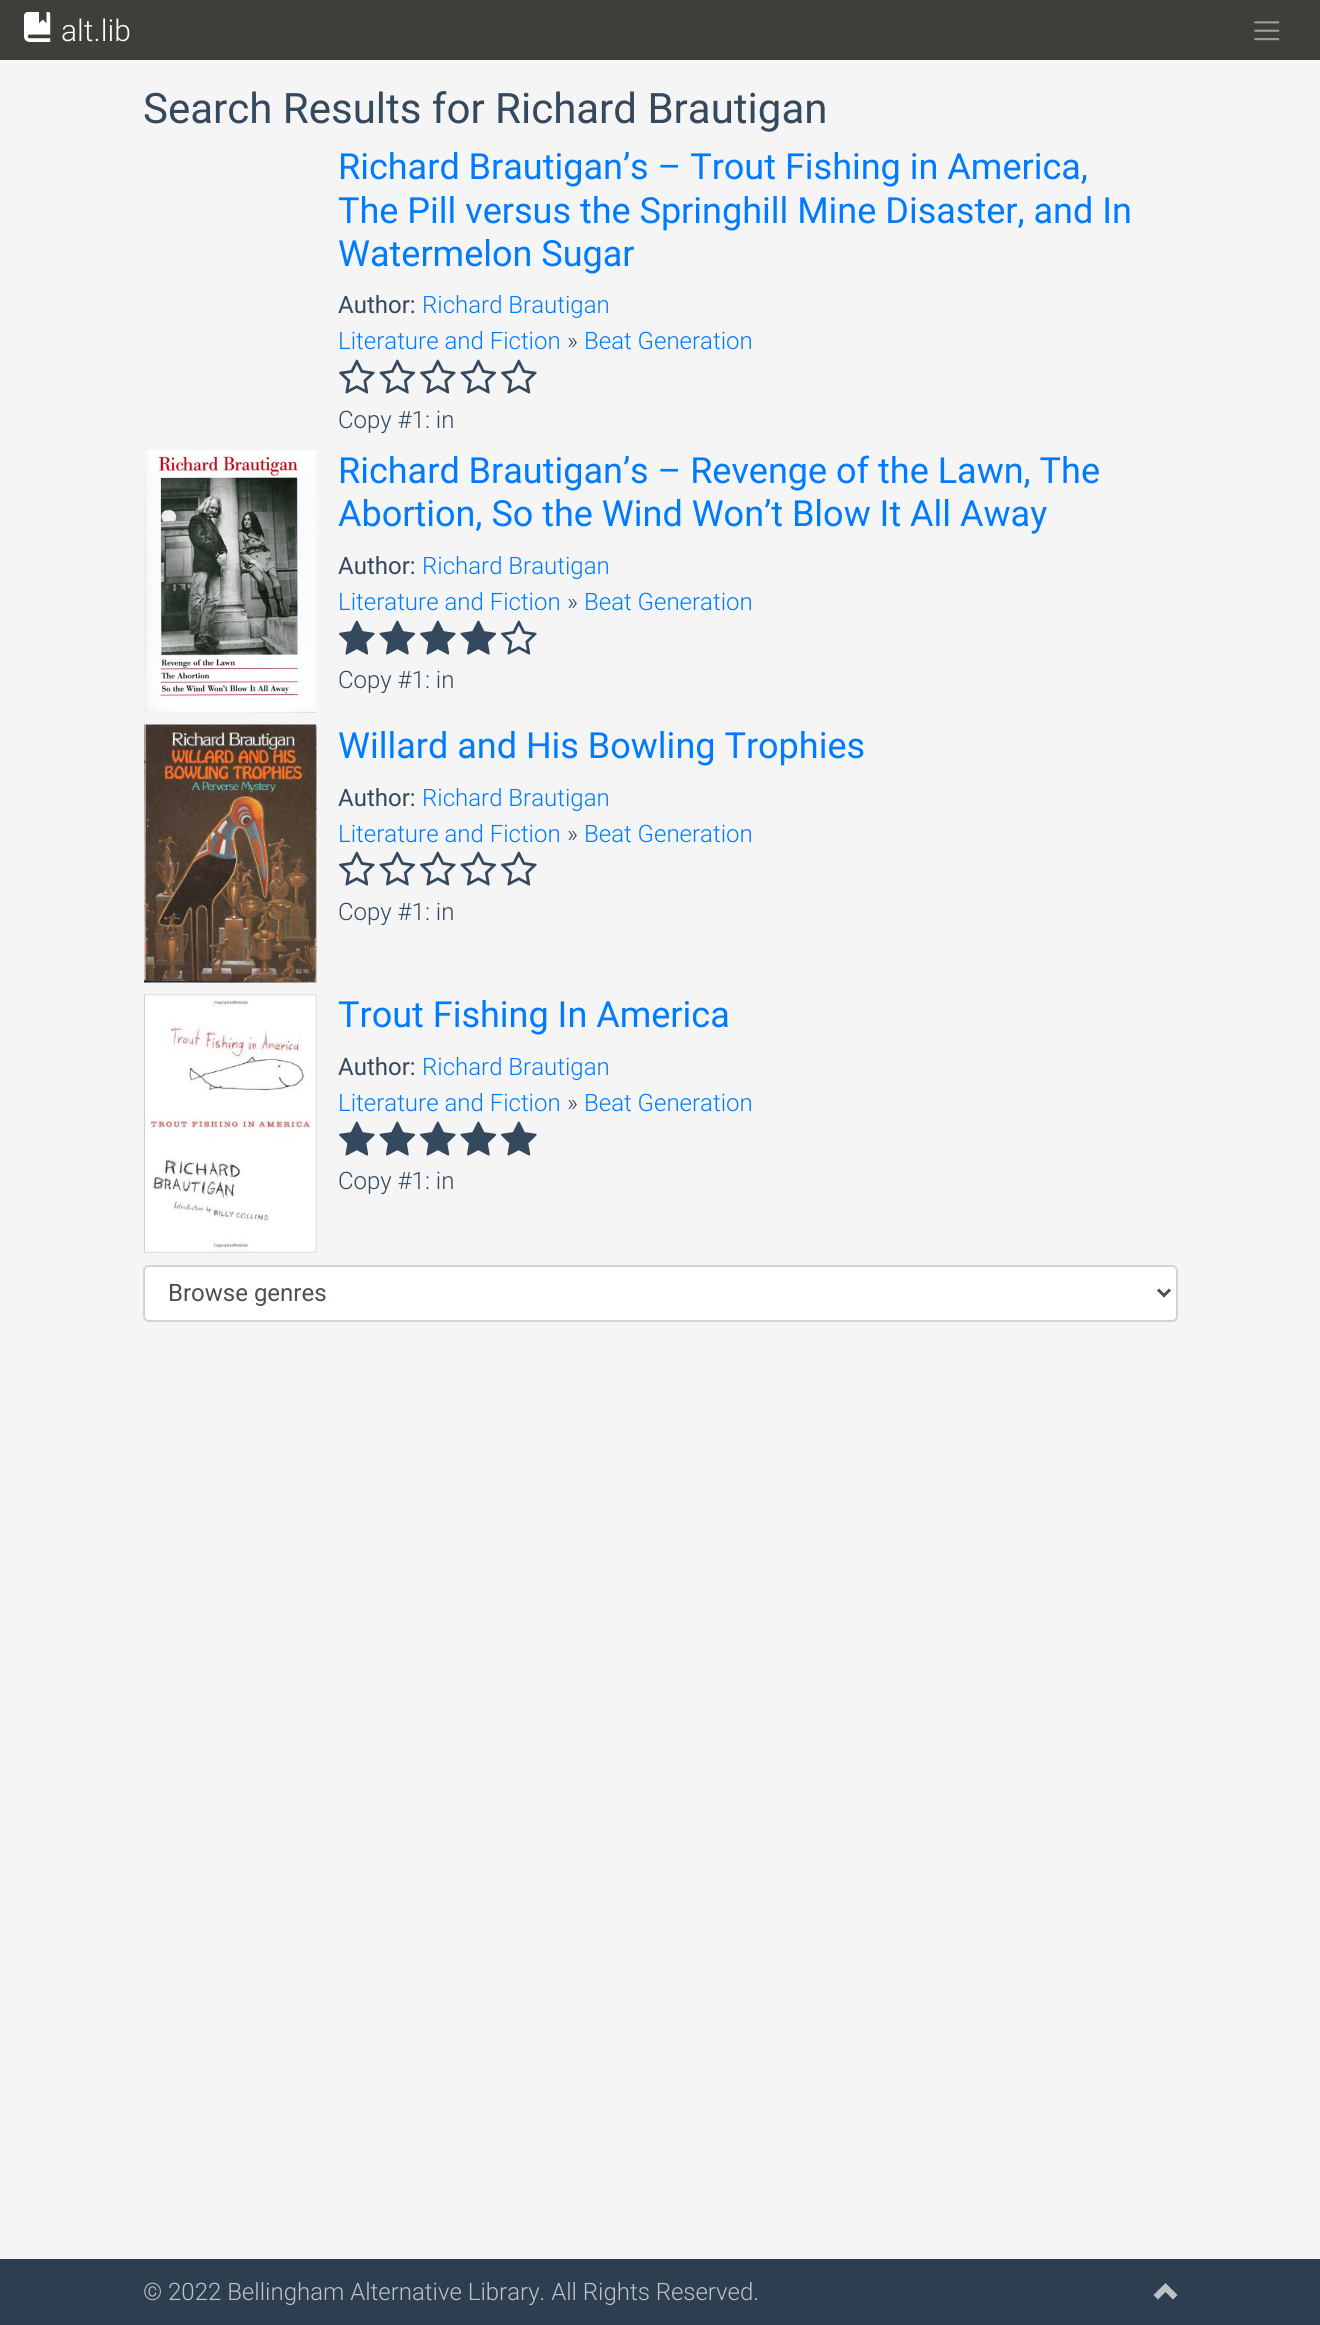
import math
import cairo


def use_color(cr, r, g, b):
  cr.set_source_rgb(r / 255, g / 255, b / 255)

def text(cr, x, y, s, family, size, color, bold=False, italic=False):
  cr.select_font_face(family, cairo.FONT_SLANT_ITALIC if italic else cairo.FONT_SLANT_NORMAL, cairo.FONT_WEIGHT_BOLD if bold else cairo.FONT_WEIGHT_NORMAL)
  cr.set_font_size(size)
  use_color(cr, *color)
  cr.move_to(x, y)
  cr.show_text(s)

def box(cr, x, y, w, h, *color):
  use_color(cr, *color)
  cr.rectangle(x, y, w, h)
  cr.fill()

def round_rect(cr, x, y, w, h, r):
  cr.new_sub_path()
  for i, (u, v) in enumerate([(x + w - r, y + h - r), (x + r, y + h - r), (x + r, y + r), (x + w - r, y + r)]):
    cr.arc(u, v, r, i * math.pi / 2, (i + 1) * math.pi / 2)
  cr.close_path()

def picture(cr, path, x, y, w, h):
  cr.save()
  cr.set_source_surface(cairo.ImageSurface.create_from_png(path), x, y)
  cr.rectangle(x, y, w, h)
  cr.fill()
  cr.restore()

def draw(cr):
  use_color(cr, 245, 245, 245)
  cr.paint()
  box(cr, 0, 0, 1320, 60, 62, 63, 58)
  picture(cr, "img_01.png", 24, 12, 27, 30)
  picture(cr, "img_02.png", 1254, 21, 26, 20)
  picture(cr, "img_03.png", 339, 359, 36, 35)
  picture(cr, "img_04.png", 379, 359, 37, 35)
  picture(cr, "img_03.png", 420, 359, 36, 35)
  picture(cr, "img_04.png", 460, 359, 37, 35)
  picture(cr, "img_03.png", 501, 359, 36, 35)
  picture(cr, "img_05.png", 144, 450, 173, 263)
  picture(cr, "img_06.png", 339, 620, 36, 35)
  picture(cr, "img_07.png", 379, 620, 37, 35)
  picture(cr, "img_06.png", 420, 620, 36, 35)
  picture(cr, "img_07.png", 460, 620, 37, 35)
  picture(cr, "img_03.png", 501, 620, 36, 35)
  picture(cr, "img_08.png", 144, 724, 173, 259)
  picture(cr, "img_03.png", 339, 851, 36, 35)
  picture(cr, "img_04.png", 379, 851, 37, 35)
  picture(cr, "img_03.png", 420, 851, 36, 35)
  picture(cr, "img_04.png", 460, 851, 37, 35)
  picture(cr, "img_03.png", 501, 851, 36, 35)
  picture(cr, "img_09.png", 144, 994, 173, 259)
  picture(cr, "img_06.png", 339, 1121, 36, 35)
  picture(cr, "img_07.png", 379, 1121, 37, 35)
  picture(cr, "img_06.png", 420, 1121, 36, 35)
  picture(cr, "img_07.png", 460, 1121, 37, 35)
  picture(cr, "img_06.png", 501, 1121, 36, 35)
  use_color(cr, 255, 255, 255)
  round_rect(cr, 144, 1266, 1033, 55, 5)
  cr.fill_preserve()
  use_color(cr, 206, 212, 218)
  cr.stroke()
  cr.new_path()
  cr.move_to(1158, 1289.5)
  cr.line_to(1164, 1295.5)
  cr.line_to(1170, 1289.5)
  use_color(cr, 73, 80, 87)
  cr.set_line_width(3)
  cr.stroke()
  box(cr, 0, 2259, 1320, 66, 44, 62, 80)
  use_color(cr, 189, 195, 199)
  cr.new_path()
  cr.move_to(1165.5, 2283)
  cr.line_to(1177.5, 2295)
  cr.line_to(1173, 2299.5)
  cr.line_to(1165.5, 2292)
  cr.line_to(1158, 2299.5)
  cr.line_to(1153.5, 2295)
  cr.close_path()
  cr.fill()
  text(cr, 61, 41, "alt.lib", "Roboto Light", 30, (255, 255, 255))
  text(cr, 143, 123, "Search Results for Richard Brautigan", "Roboto", 42, (52, 73, 94))
  text(cr, 338, 179, "Richard Brautigan’s – Trout Fishing in America,", "Roboto", 36, (0, 123, 255))
  text(cr, 338, 223, "The Pill versus the Springhill Mine Disaster, and In", "Roboto", 36, (0, 123, 255))
  text(cr, 338, 266, "Watermelon Sugar", "Roboto", 36, (0, 123, 255))
  text(cr, 338, 313, "Author:", "Roboto", 24, (52, 73, 94))
  text(cr, 422, 313, "Richard Brautigan", "Roboto Light", 24, (0, 123, 255))
  text(cr, 338, 349, "Literature and Fiction", "Roboto Light", 24, (0, 123, 255))
  text(cr, 567, 349, "»", "Roboto Light", 24, (52, 73, 94))
  text(cr, 584, 349, "Beat Generation", "Roboto Light", 24, (0, 123, 255))
  text(cr, 338, 428, "Copy #1: in", "Roboto Light", 24, (52, 73, 94))
  text(cr, 338, 483, "Richard Brautigan’s – Revenge of the Lawn, The", "Roboto", 36, (0, 123, 255))
  text(cr, 338, 526, "Abortion, So the Wind Won’t Blow It All Away", "Roboto", 36, (0, 123, 255))
  text(cr, 338, 574, "Author:", "Roboto", 24, (52, 73, 94))
  text(cr, 422, 574, "Richard Brautigan", "Roboto Light", 24, (0, 123, 255))
  text(cr, 338, 610, "Literature and Fiction", "Roboto Light", 24, (0, 123, 255))
  text(cr, 567, 610, "»", "Roboto Light", 24, (52, 73, 94))
  text(cr, 584, 610, "Beat Generation", "Roboto Light", 24, (0, 123, 255))
  text(cr, 338, 688, "Copy #1: in", "Roboto Light", 24, (52, 73, 94))
  text(cr, 338, 758, "Willard and His Bowling Trophies", "Roboto", 36, (0, 123, 255))
  text(cr, 338, 806, "Author:", "Roboto", 24, (52, 73, 94))
  text(cr, 422, 806, "Richard Brautigan", "Roboto Light", 24, (0, 123, 255))
  text(cr, 338, 842, "Literature and Fiction", "Roboto Light", 24, (0, 123, 255))
  text(cr, 567, 842, "»", "Roboto Light", 24, (52, 73, 94))
  text(cr, 584, 842, "Beat Generation", "Roboto Light", 24, (0, 123, 255))
  text(cr, 338, 920, "Copy #1: in", "Roboto Light", 24, (52, 73, 94))
  text(cr, 338, 1027, "Trout Fishing In America", "Roboto", 36, (0, 123, 255))
  text(cr, 338, 1075, "Author:", "Roboto", 24, (52, 73, 94))
  text(cr, 422, 1075, "Richard Brautigan", "Roboto Light", 24, (0, 123, 255))
  text(cr, 338, 1111, "Literature and Fiction", "Roboto Light", 24, (0, 123, 255))
  text(cr, 567, 1111, "»", "Roboto Light", 24, (52, 73, 94))
  text(cr, 584, 1111, "Beat Generation", "Roboto Light", 24, (0, 123, 255))
  text(cr, 338, 1189, "Copy #1: in", "Roboto Light", 24, (52, 73, 94))
  text(cr, 168, 1301, "Browse genres", "Roboto", 24, (73, 80, 87))
  text(cr, 143, 2300, "© 2022 Bellingham Alternative Library. All Rights Reserved.", "Roboto Light", 24, (189, 195, 199))


surface = cairo.ImageSurface(cairo.FORMAT_RGB24, 1320, 2325)
cr = cairo.Context(surface)
options = cairo.FontOptions()
options.set_hint_metrics(cairo.HINT_METRICS_OFF)
options.set_hint_style(cairo.HINT_STYLE_NONE)
cr.set_font_options(options)
cr.set_miter_limit(4)
draw(cr)
surface.write_to_png("out.png")
